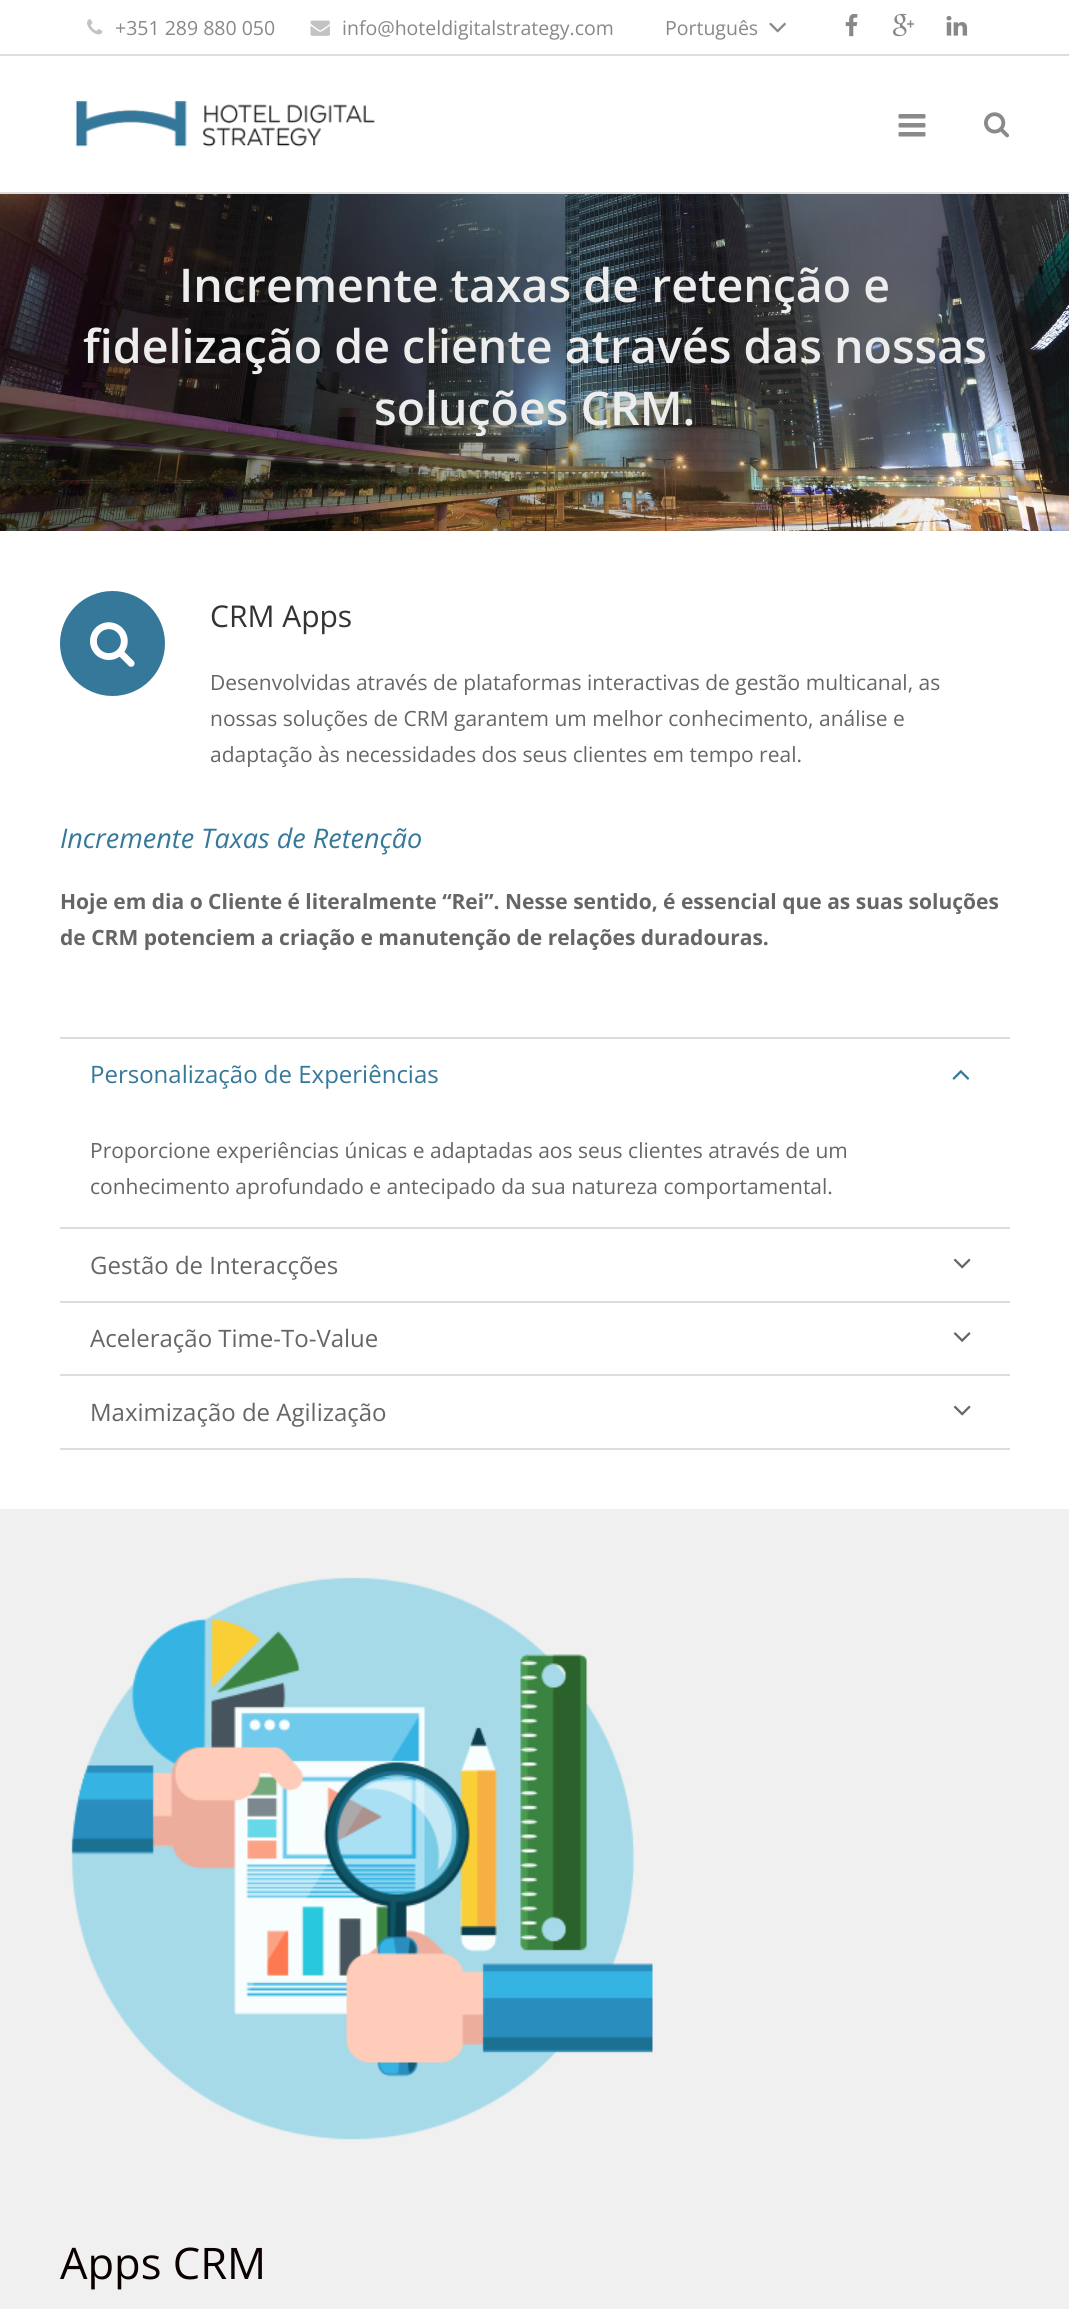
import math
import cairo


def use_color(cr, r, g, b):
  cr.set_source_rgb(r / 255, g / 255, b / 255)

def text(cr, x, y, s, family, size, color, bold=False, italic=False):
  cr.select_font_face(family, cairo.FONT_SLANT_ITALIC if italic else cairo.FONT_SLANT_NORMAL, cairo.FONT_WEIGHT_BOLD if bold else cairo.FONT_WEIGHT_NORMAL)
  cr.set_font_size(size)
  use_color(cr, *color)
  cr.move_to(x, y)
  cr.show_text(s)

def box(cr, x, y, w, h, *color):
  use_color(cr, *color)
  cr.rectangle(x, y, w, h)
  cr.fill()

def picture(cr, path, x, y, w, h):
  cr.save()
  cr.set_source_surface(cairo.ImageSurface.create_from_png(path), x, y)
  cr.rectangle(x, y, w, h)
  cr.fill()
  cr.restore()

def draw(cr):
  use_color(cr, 255, 255, 255)
  cr.paint()
  box(cr, 0, 54, 1069, 2, 222, 222, 222)
  picture(cr, "img_01.png", 87, 19, 16, 16)
  picture(cr, "img_02.png", 310, 20, 20, 16)
  picture(cr, "img_03.png", 769, 22, 17, 11)
  picture(cr, "img_04.png", 845, 13, 13, 24)
  picture(cr, "img_05.png", 893, 13, 22, 24)
  picture(cr, "img_06.png", 946, 16, 22, 20)
  box(cr, 0, 192, 1069, 2, 222, 222, 222)
  picture(cr, "img_07.png", 75, 101, 300, 46)
  picture(cr, "img_08.png", 898, 114, 28, 23)
  picture(cr, "img_09.png", 984, 112, 25, 26)
  picture(cr, "img_10.png", 0, 194, 1069, 337)
  use_color(cr, 54, 120, 154)
  cr.arc(112.5, 643.5, 52.5, 0, 2 * math.pi)
  cr.fill()
  picture(cr, "img_11.png", 90, 622, 45, 45)
  box(cr, 60, 1448, 950, 2, 221, 221, 221)
  box(cr, 60, 1037, 950, 2, 221, 221, 221)
  picture(cr, "img_12.png", 952, 1070, 18, 10)
  box(cr, 60, 1227, 950, 2, 221, 221, 221)
  picture(cr, "img_13.png", 953, 1258, 18, 11)
  box(cr, 60, 1301, 950, 2, 221, 221, 221)
  picture(cr, "img_14.png", 953, 1332, 18, 10)
  box(cr, 60, 1374, 950, 2, 221, 221, 221)
  picture(cr, "img_13.png", 953, 1405, 18, 11)
  box(cr, 0, 1509, 1069, 800, 240, 240, 240)
  picture(cr, "img_15.png", 71, 1577, 582, 563)
  text(cr, 115, 35, "+351 289 880 050", "Open Sans", 19.5, (136, 136, 136))
  text(cr, 342, 35, "info@hoteldigitalstrategy.com", "Open Sans", 19.5, (136, 136, 136))
  text(cr, 665, 35, "Português", "Open Sans", 19.5, (136, 136, 136))
  text(cr, 179, 302, "Incremente taxas de retenção e", "Open Sans SemiBold", 46.5, (237, 237, 237))
  text(cr, 83, 363, "fidelização de cliente através das nossas", "Open Sans SemiBold", 46.5, (237, 237, 237))
  text(cr, 374, 425, "soluções CRM.", "Open Sans SemiBold", 46.5, (237, 237, 237))
  text(cr, 210, 627, "CRM Apps", "Open Sans", 30, (51, 51, 51))
  text(cr, 210, 690, "Desenvolvidas através de plataformas interactivas de gestão multicanal, as", "Open Sans", 21, (102, 102, 102))
  text(cr, 210, 726, "nossas soluções de CRM garantem um melhor conhecimento, análise e", "Open Sans", 21, (102, 102, 102))
  text(cr, 210, 762, "adaptação às necessidades dos seus clientes em tempo real.", "Open Sans", 21, (102, 102, 102))
  text(cr, 60, 848, "Incremente Taxas de Retenção", "Open Sans", 27, (54, 120, 154), italic=True)
  text(cr, 60, 909, "Hoje em dia o Cliente é literalmente “Rei”. Nesse sentido, é essencial que as suas soluções", "Open Sans", 21, (102, 102, 102), bold=True)
  text(cr, 60, 945, "de CRM potenciem a criação e manutenção de relações duradouras.", "Open Sans", 21, (102, 102, 102), bold=True)
  text(cr, 90, 1083, "Personalização de Experiências", "Open Sans", 24, (54, 120, 154))
  text(cr, 90, 1158, "Proporcione experiências únicas e adaptadas aos seus clientes através de um", "Open Sans", 21, (102, 102, 102))
  text(cr, 90, 1194, "conhecimento aprofundado e antecipado da sua natureza comportamental.", "Open Sans", 21, (102, 102, 102))
  text(cr, 90, 1274, "Gestão de Interacções", "Open Sans", 24, (102, 102, 102))
  text(cr, 90, 1347, "Aceleração Time-To-Value", "Open Sans", 24, (102, 102, 102))
  text(cr, 90, 1421, "Maximização de Agilização", "Open Sans", 24, (102, 102, 102))
  text(cr, 60, 2279, "Apps CRM", "Open Sans", 43.5, (10, 0, 0))


surface = cairo.ImageSurface(cairo.FORMAT_RGB24, 1069, 2309)
cr = cairo.Context(surface)
options = cairo.FontOptions()
options.set_hint_metrics(cairo.HINT_METRICS_OFF)
options.set_hint_style(cairo.HINT_STYLE_NONE)
cr.set_font_options(options)
cr.set_miter_limit(4)
draw(cr)
surface.write_to_png("out.png")
